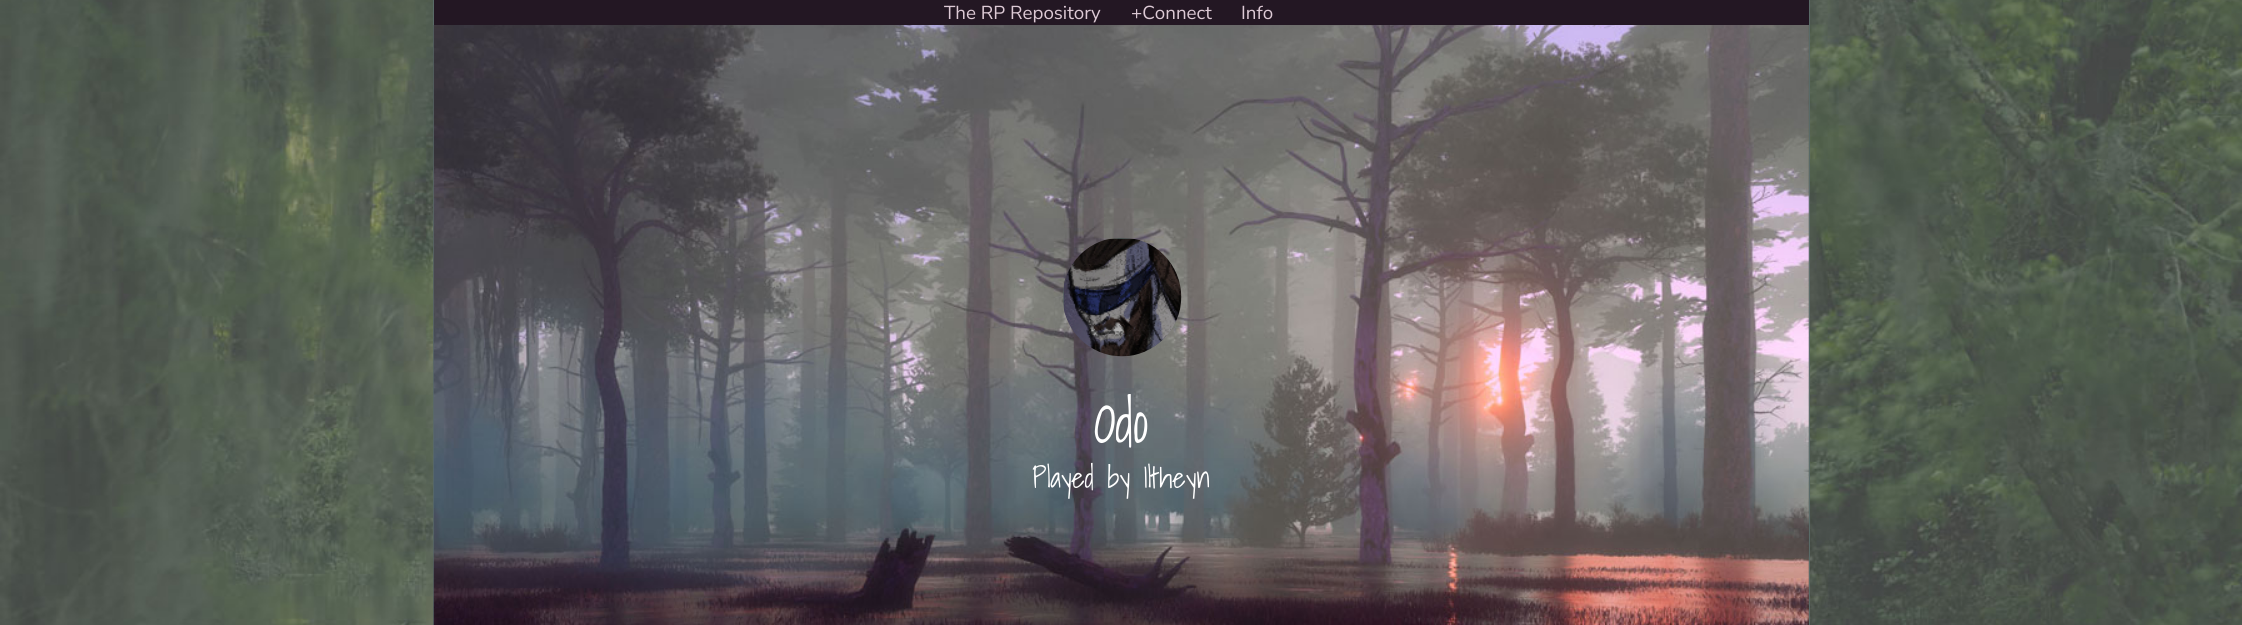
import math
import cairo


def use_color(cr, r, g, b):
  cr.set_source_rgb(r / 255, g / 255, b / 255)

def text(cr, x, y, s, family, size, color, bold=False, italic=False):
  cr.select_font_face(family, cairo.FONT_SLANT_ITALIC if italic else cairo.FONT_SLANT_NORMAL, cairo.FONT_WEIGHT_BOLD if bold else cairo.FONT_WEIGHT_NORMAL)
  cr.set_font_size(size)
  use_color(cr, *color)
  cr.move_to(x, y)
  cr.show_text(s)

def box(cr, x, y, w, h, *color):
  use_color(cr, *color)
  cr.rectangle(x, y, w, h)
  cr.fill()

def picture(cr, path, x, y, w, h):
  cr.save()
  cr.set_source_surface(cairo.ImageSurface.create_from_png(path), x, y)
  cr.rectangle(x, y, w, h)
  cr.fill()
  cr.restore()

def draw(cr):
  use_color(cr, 255, 255, 255)
  cr.paint()
  picture(cr, "img_01.png", 0, 0, 2242, 625)
  box(cr, 1809, 0, 1, 625, 89, 106, 103)
  box(cr, 433, 0, 1, 625, 89, 106, 103)
  box(cr, 434, 0, 1375, 25, 35, 23, 35)
  picture(cr, "img_02.png", 433, 25, 1376, 600)
  use_color(cr, 89, 106, 103)
  cr.set_fill_rule(cairo.FILL_RULE_EVEN_ODD)
  cr.new_path()
  cr.move_to(1122, 238)
  cr.line_to(1111, 239)
  cr.line_to(1133, 239)
  cr.close_path()
  cr.move_to(1064, 308)
  cr.curve_to(1063, 301, 1063, 293, 1064, 286)
  cr.close_path()
  cr.fill()
  picture(cr, "img_03.png", 1063, 238, 119, 119)
  text(cr, 944, 19, "The RP Repository", "Nunito Sans ExtraLight", 18.75, (221, 202, 213))
  text(cr, 1131, 19, "+Connect", "Nunito Sans ExtraLight", 18.75, (221, 202, 213))
  text(cr, 1241, 19, "Info", "Nunito Sans ExtraLight", 18.75, (221, 202, 213))
  text(cr, 1094, 443, "Odo", "Shadows Into Light Light", 56, (255, 255, 255))
  text(cr, 1032, 488, "Played by Iltheyn", "Shadows Into Light Light", 28.75, (255, 255, 255))


surface = cairo.ImageSurface(cairo.FORMAT_RGB24, 2242, 625)
cr = cairo.Context(surface)
options = cairo.FontOptions()
options.set_hint_metrics(cairo.HINT_METRICS_OFF)
options.set_hint_style(cairo.HINT_STYLE_NONE)
cr.set_font_options(options)
cr.set_miter_limit(4)
draw(cr)
surface.write_to_png("out.png")
